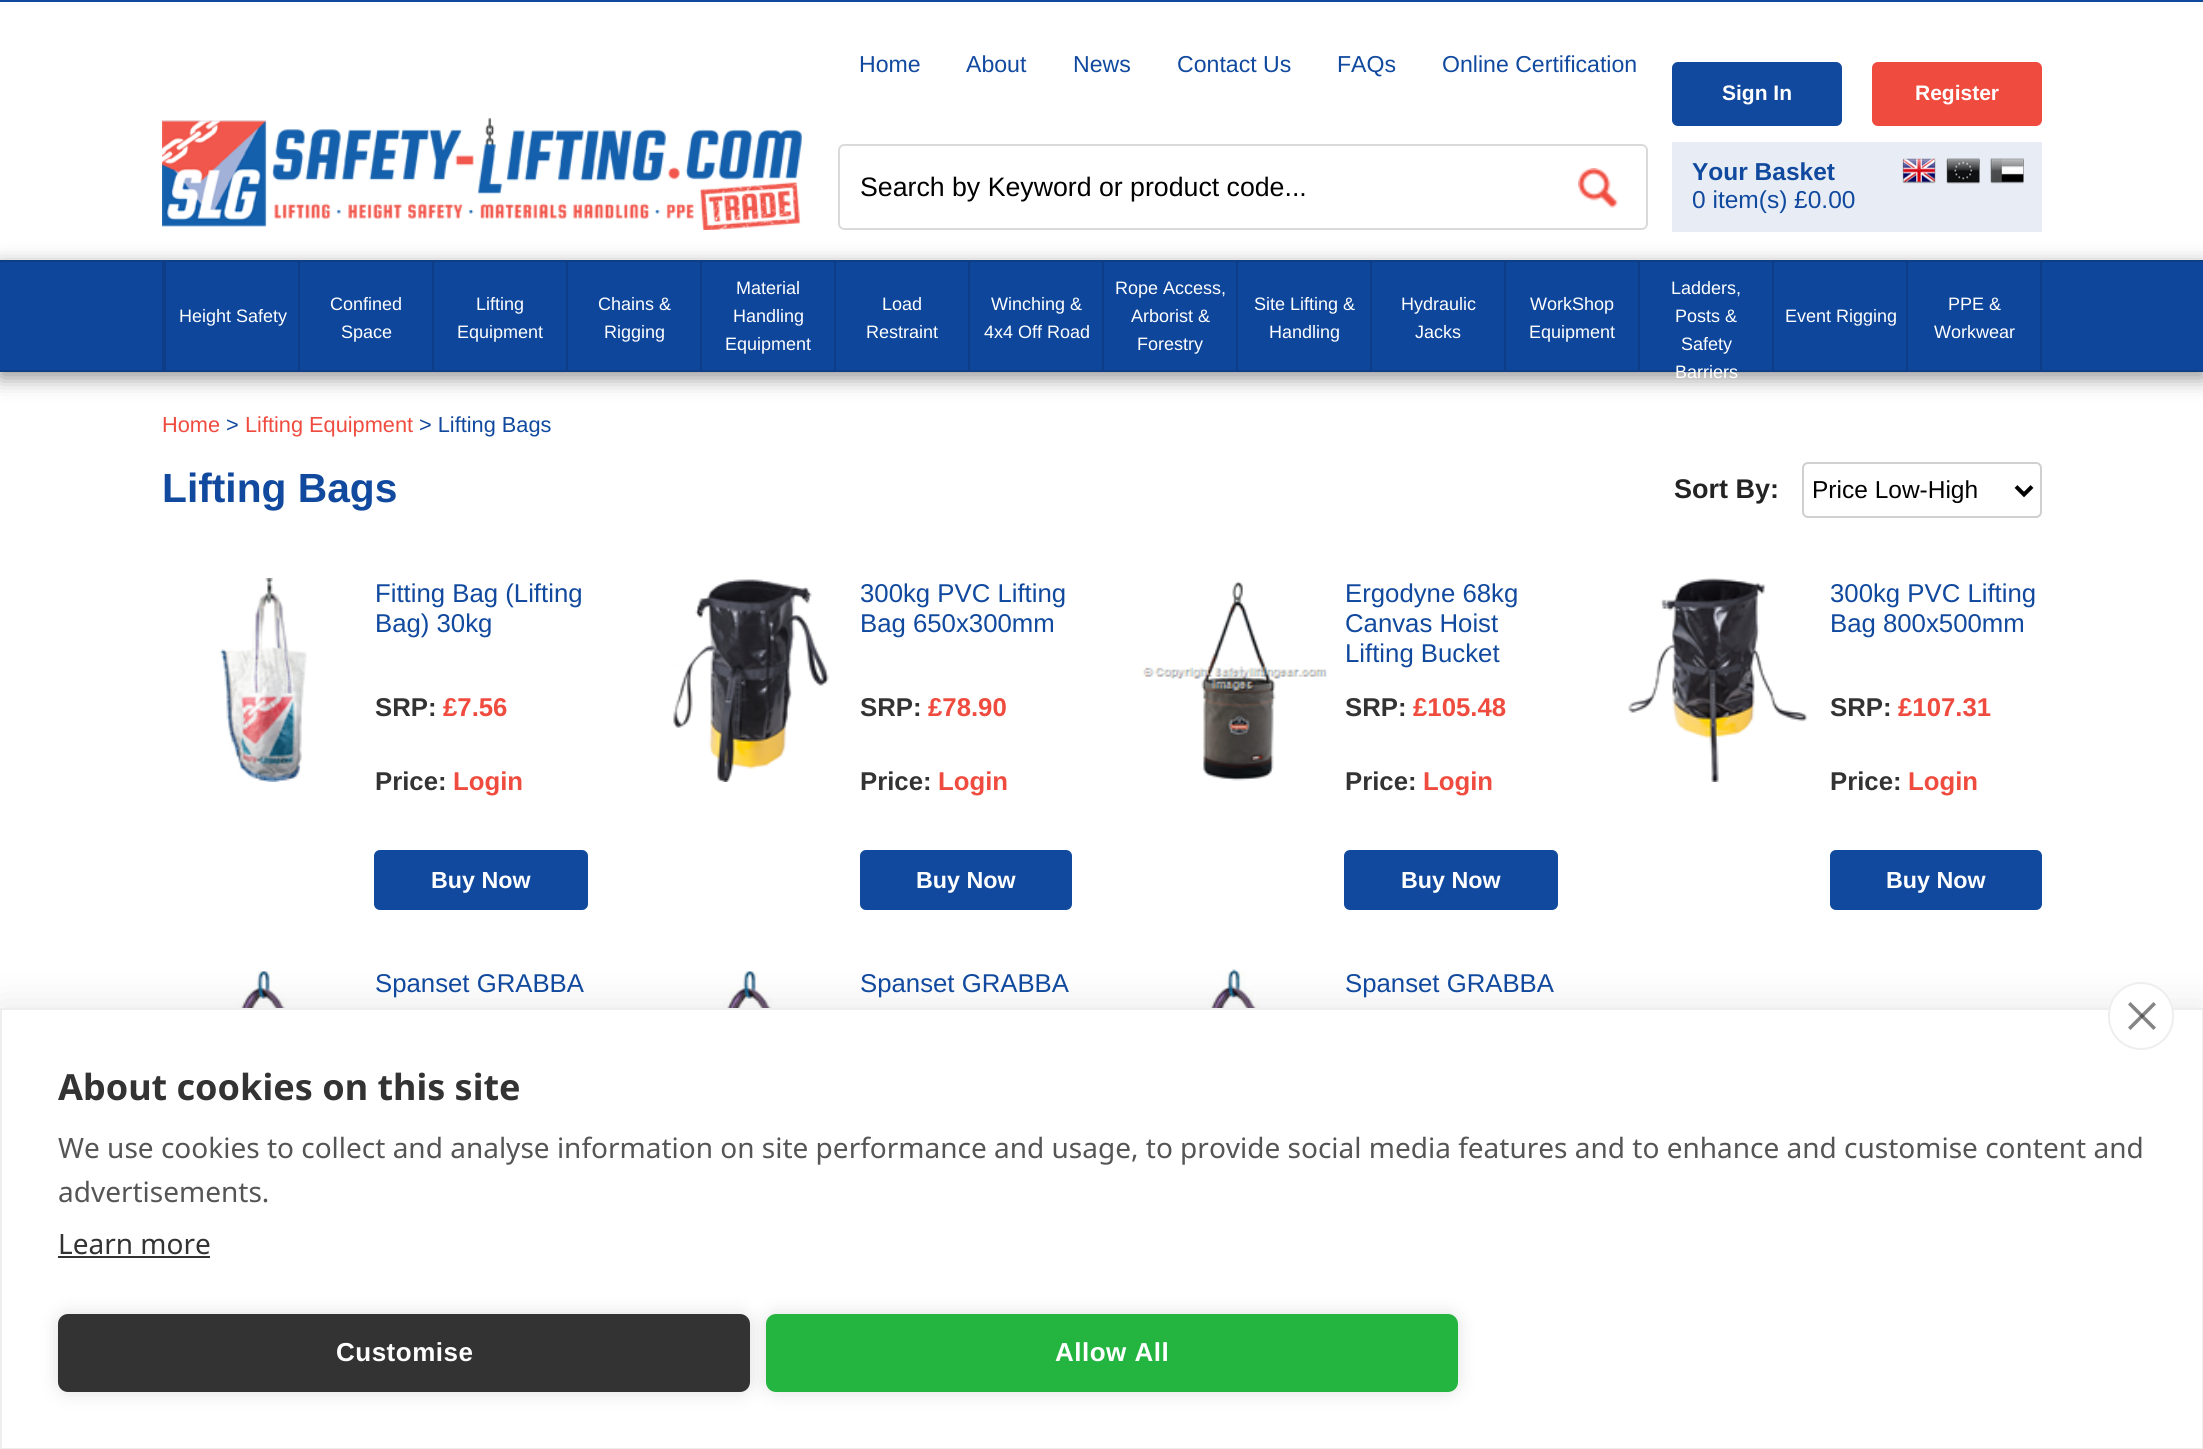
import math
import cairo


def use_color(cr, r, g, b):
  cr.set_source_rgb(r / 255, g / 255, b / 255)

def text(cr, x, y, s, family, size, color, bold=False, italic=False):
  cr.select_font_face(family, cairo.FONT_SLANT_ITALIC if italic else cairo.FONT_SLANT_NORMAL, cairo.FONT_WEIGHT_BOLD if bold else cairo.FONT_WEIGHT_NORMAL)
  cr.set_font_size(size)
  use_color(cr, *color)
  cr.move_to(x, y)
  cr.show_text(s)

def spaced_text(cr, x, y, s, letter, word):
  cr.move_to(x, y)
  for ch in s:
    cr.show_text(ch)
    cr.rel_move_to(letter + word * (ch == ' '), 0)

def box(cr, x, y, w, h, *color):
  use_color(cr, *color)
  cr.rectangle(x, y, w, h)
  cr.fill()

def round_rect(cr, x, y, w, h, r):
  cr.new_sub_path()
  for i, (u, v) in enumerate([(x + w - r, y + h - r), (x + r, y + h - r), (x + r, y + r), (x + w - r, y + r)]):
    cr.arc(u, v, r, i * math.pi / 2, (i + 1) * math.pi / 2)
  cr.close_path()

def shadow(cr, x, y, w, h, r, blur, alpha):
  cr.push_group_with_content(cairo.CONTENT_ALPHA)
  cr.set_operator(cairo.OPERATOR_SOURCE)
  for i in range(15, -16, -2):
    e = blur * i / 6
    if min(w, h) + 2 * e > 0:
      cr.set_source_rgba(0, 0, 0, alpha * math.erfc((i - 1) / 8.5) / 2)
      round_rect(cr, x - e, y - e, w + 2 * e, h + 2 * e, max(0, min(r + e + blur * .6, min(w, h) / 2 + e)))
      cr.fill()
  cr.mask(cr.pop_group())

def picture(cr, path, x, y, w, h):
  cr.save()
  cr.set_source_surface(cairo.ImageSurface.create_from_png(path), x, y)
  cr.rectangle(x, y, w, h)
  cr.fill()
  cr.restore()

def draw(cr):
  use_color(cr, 255, 255, 255)
  cr.paint()
  box(cr, 0, 0, 2203, 2, 16, 73, 158)
  picture(cr, "img_01.png", 162, 118, 640, 112)
  use_color(cr, 148, 148, 148)
  shadow(cr, 0, 266, 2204, 112, 0, 10, 1)
  box(cr, 0, 262, 2203, 108, 13, 70, 155)
  box(cr, 0, 260, 2203, 2, 13, 62, 134)
  box(cr, 0, 370, 2203, 2, 13, 62, 134)
  use_color(cr, 16, 73, 158)
  round_rect(cr, 1672, 62, 170, 64, 6)
  cr.fill()
  use_color(cr, 239, 75, 62)
  round_rect(cr, 1872, 62, 170, 64, 6)
  cr.fill()
  use_color(cr, 218, 218, 218)
  cr.set_fill_rule(cairo.FILL_RULE_EVEN_ODD)
  cr.new_path()
  cr.move_to(844, 144)
  cr.line_to(1548, 144)
  cr.line_to(1548, 230)
  cr.line_to(844, 230)
  cr.curve_to(841, 230, 838, 227, 838, 224)
  cr.line_to(838, 150)
  cr.curve_to(838, 147, 841, 144, 844, 144)
  cr.close_path()
  cr.move_to(844, 146)
  cr.line_to(1548, 146)
  cr.line_to(1548, 228)
  cr.line_to(844, 228)
  cr.curve_to(842, 228, 840, 226, 840, 224)
  cr.line_to(840, 150)
  cr.curve_to(840, 148, 842, 146, 844, 146)
  cr.close_path()
  cr.fill()
  picture(cr, "img_02.png", 1578, 168, 40, 40)
  cr.new_path()
  cr.move_to(1548, 144)
  cr.line_to(1642, 144)
  cr.curve_to(1645, 144, 1648, 147, 1648, 150)
  cr.line_to(1648, 224)
  cr.curve_to(1648, 227, 1645, 230, 1642, 230)
  cr.line_to(1548, 230)
  cr.close_path()
  cr.move_to(1548, 146)
  cr.line_to(1642, 146)
  cr.curve_to(1644, 146, 1646, 148, 1646, 150)
  cr.line_to(1646, 224)
  cr.curve_to(1646, 226, 1644, 228, 1642, 228)
  cr.line_to(1548, 228)
  cr.close_path()
  cr.fill()
  box(cr, 1672, 142, 370, 90, 232, 237, 245)
  picture(cr, "img_03.png", 1902, 158, 34, 26)
  picture(cr, "img_04.png", 1946, 158, 34, 26)
  picture(cr, "img_05.png", 1990, 158, 34, 26)
  box(cr, 162, 262, 4, 110, 12, 61, 134)
  box(cr, 298, 262, 2, 110, 12, 61, 134)
  box(cr, 432, 262, 2, 110, 12, 61, 134)
  box(cr, 566, 262, 2, 110, 12, 61, 134)
  box(cr, 700, 262, 2, 110, 12, 61, 134)
  box(cr, 834, 262, 2, 110, 12, 61, 134)
  box(cr, 968, 262, 2, 110, 12, 61, 134)
  box(cr, 1102, 262, 2, 110, 12, 61, 134)
  box(cr, 1236, 262, 2, 110, 12, 61, 134)
  box(cr, 1370, 262, 2, 110, 12, 61, 134)
  box(cr, 1504, 262, 2, 110, 12, 61, 134)
  box(cr, 1638, 262, 2, 110, 12, 61, 134)
  box(cr, 1772, 262, 2, 110, 12, 61, 134)
  box(cr, 1906, 262, 2, 110, 12, 61, 134)
  box(cr, 2040, 262, 2, 110, 12, 61, 134)
  round_rect(cr, 1803, 463, 238, 54, 5)
  use_color(cr, 208, 208, 208)
  cr.stroke()
  cr.new_path()
  cr.move_to(2016, 486.5)
  cr.line_to(2024, 494.5)
  cr.line_to(2032, 486.5)
  use_color(cr, 0, 0, 0)
  cr.set_line_width(4)
  cr.stroke()
  picture(cr, "img_06.png", 219, 578, 88, 204)
  use_color(cr, 16, 73, 158)
  round_rect(cr, 374, 850, 214, 60, 6)
  cr.fill()
  picture(cr, "img_07.png", 673, 579, 156, 203)
  round_rect(cr, 860, 850, 212, 60, 6)
  cr.fill()
  picture(cr, "img_08.png", 1142, 581, 186, 200)
  round_rect(cr, 1344, 850, 214, 60, 6)
  cr.fill()
  picture(cr, "img_09.png", 1628, 578, 180, 204)
  round_rect(cr, 1830, 850, 212, 60, 6)
  cr.fill()
  picture(cr, "img_10.png", 218, 971, 91, 37)
  picture(cr, "img_10.png", 704, 971, 91, 37)
  picture(cr, "img_11.png", 1188, 969, 91, 39)
  use_color(cr, 0, 0, 0)
  shadow(cr, 0, 1008, 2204, 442, 0, 20, 0.1)
  use_color(cr, 255, 255, 255)
  cr.rectangle(1, 1009, 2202, 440)
  cr.fill_preserve()
  use_color(cr, 238, 238, 238)
  cr.set_line_width(2)
  cr.stroke()
  use_color(cr, 255, 255, 255)
  round_rect(cr, 2109, 983, 64, 66, 32)
  cr.fill_preserve()
  use_color(cr, 238, 238, 238)
  cr.stroke()
  use_color(cr, 133, 133, 133)
  cr.set_fill_rule(cairo.FILL_RULE_WINDING)
  cr.new_path()
  cr.move_to(2128, 1027.5)
  cr.line_to(2153.5, 1002)
  cr.line_to(2156, 1004.5)
  cr.line_to(2130.5, 1030)
  cr.close_path()
  cr.fill()
  cr.set_source_rgba(0.2, 0.2, 0.2, 0.6)
  cr.new_path()
  cr.move_to(2130.5, 1002)
  cr.line_to(2156, 1027.5)
  cr.line_to(2153.5, 1030)
  cr.line_to(2128, 1004.5)
  cr.close_path()
  cr.fill()
  box(cr, 58, 1256, 152, 2, 51, 51, 51)
  use_color(cr, 0, 0, 0)
  shadow(cr, 58, 1314, 692, 78, 10, 10, 0.12)
  use_color(cr, 51, 51, 51)
  round_rect(cr, 58, 1314, 692, 78, 10)
  cr.fill()
  use_color(cr, 0, 0, 0)
  shadow(cr, 766, 1314, 692, 78, 10, 10, 0.12)
  use_color(cr, 36, 181, 65)
  round_rect(cr, 766, 1314, 692, 78, 10)
  cr.fill()
  text(cr, 859, 72, "Home", "Liberation Sans", 23.1, (16, 73, 158))
  text(cr, 966, 72, "About", "Liberation Sans", 23.1, (16, 73, 158))
  text(cr, 1073, 72, "News", "Liberation Sans", 23.1, (16, 73, 158))
  text(cr, 1177, 72, "Contact Us", "Liberation Sans", 23.1, (16, 73, 158))
  text(cr, 1337, 72, "FAQs", "Liberation Sans", 23.1, (16, 73, 158))
  text(cr, 1442, 72, "Online Certification", "Liberation Sans", 23.1, (16, 73, 158))
  text(cr, 1722, 100, "Sign In", "Liberation Sans", 21, (255, 255, 255), bold=True)
  text(cr, 1915, 100, "Register", "Liberation Sans", 21, (255, 255, 255), bold=True)
  text(cr, 860, 196, "Search by Keyword or product code...", "Liberation Sans", 26.7, (0, 0, 0))
  text(cr, 1692, 180, "Your Basket", "Liberation Sans", 24.5, (16, 73, 158), bold=True)
  text(cr, 1692, 208, "0 item(s) £0.00", "Liberation Sans", 24.5, (16, 73, 158))
  text(cr, 179, 322, "Height Safety", "Liberation Sans", 18, (255, 255, 255))
  text(cr, 330, 310, "Confined", "Liberation Sans", 18, (255, 255, 255))
  text(cr, 341, 338, "Space", "Liberation Sans", 18, (255, 255, 255))
  text(cr, 476, 310, "Lifting", "Liberation Sans", 18, (255, 255, 255))
  text(cr, 457, 338, "Equipment", "Liberation Sans", 18, (255, 255, 255))
  text(cr, 598, 310, "Chains &", "Liberation Sans", 18, (255, 255, 255))
  text(cr, 604, 338, "Rigging", "Liberation Sans", 18, (255, 255, 255))
  text(cr, 736, 294, "Material", "Liberation Sans", 18, (255, 255, 255))
  text(cr, 733, 322, "Handling", "Liberation Sans", 18, (255, 255, 255))
  text(cr, 725, 350, "Equipment", "Liberation Sans", 18, (255, 255, 255))
  text(cr, 882, 310, "Load", "Liberation Sans", 18, (255, 255, 255))
  text(cr, 866, 338, "Restraint", "Liberation Sans", 18, (255, 255, 255))
  text(cr, 991, 310, "Winching &", "Liberation Sans", 18, (255, 255, 255))
  text(cr, 984, 338, "4x4 Off Road", "Liberation Sans", 18, (255, 255, 255))
  text(cr, 1115, 294, "Rope Access,", "Liberation Sans", 18, (255, 255, 255))
  text(cr, 1131, 322, "Arborist &", "Liberation Sans", 18, (255, 255, 255))
  text(cr, 1137, 350, "Forestry", "Liberation Sans", 18, (255, 255, 255))
  text(cr, 1254, 310, "Site Lifting &", "Liberation Sans", 18, (255, 255, 255))
  text(cr, 1269, 338, "Handling", "Liberation Sans", 18, (255, 255, 255))
  text(cr, 1401, 310, "Hydraulic", "Liberation Sans", 18, (255, 255, 255))
  text(cr, 1415, 338, "Jacks", "Liberation Sans", 18, (255, 255, 255))
  text(cr, 1530, 310, "WorkShop", "Liberation Sans", 18, (255, 255, 255))
  text(cr, 1529, 338, "Equipment", "Liberation Sans", 18, (255, 255, 255))
  text(cr, 1671, 294, "Ladders,", "Liberation Sans", 18, (255, 255, 255))
  text(cr, 1675, 322, "Posts &", "Liberation Sans", 18, (255, 255, 255))
  text(cr, 1681, 350, "Safety", "Liberation Sans", 18, (255, 255, 255))
  text(cr, 1675, 378, "Barriers", "Liberation Sans", 18, (255, 255, 255))
  text(cr, 1785, 322, "Event Rigging", "Liberation Sans", 18, (255, 255, 255))
  text(cr, 1948, 310, "PPE &", "Liberation Sans", 18, (255, 255, 255))
  text(cr, 1934, 338, "Workwear", "Liberation Sans", 18, (255, 255, 255))
  text(cr, 162, 432, "Home", "Liberation Sans", 21.75, (239, 75, 62))
  text(cr, 226, 432, ">", "Liberation Sans", 21.75, (16, 73, 158))
  text(cr, 245, 432, "Lifting Equipment", "Liberation Sans", 21.75, (239, 75, 62))
  text(cr, 419, 432, "> Lifting Bags", "Liberation Sans", 21.75, (16, 73, 158))
  text(cr, 162, 502, "Lifting Bags", "Liberation Sans", 40.75, (16, 73, 158), bold=True)
  text(cr, 1674, 498, "Sort By:", "Liberation Sans", 27, (35, 35, 35), bold=True)
  text(cr, 1812, 498, "Price Low-High", "Liberation Sans", 24.5, (0, 0, 0))
  text(cr, 375, 602, "Fitting Bag (Lifting", "Liberation Sans", 25.75, (16, 73, 158))
  text(cr, 375, 632, "Bag) 30kg", "Liberation Sans", 25.75, (16, 73, 158))
  text(cr, 375, 716, "SRP:", "Liberation Sans", 25.75, (51, 51, 51), bold=True)
  text(cr, 443, 716, "£7.56", "Liberation Sans", 25.75, (239, 75, 62), bold=True)
  text(cr, 375, 790, "Price:", "Liberation Sans", 25.75, (51, 51, 51), bold=True)
  text(cr, 453, 790, "Login", "Liberation Sans", 25.75, (239, 75, 62), bold=True)
  text(cr, 431, 888, "Buy Now", "Liberation Sans", 23.25, (255, 255, 255), bold=True)
  text(cr, 860, 602, "300kg PVC Lifting", "Liberation Sans", 25.75, (16, 73, 158))
  text(cr, 860, 632, "Bag 650x300mm", "Liberation Sans", 25.75, (16, 73, 158))
  text(cr, 860, 716, "SRP:", "Liberation Sans", 25.75, (51, 51, 51), bold=True)
  text(cr, 928, 716, "£78.90", "Liberation Sans", 25.75, (239, 75, 62), bold=True)
  text(cr, 860, 790, "Price:", "Liberation Sans", 25.75, (51, 51, 51), bold=True)
  text(cr, 938, 790, "Login", "Liberation Sans", 25.75, (239, 75, 62), bold=True)
  text(cr, 916, 888, "Buy Now", "Liberation Sans", 23.25, (255, 255, 255), bold=True)
  text(cr, 1345, 602, "Ergodyne 68kg", "Liberation Sans", 25.75, (16, 73, 158))
  text(cr, 1345, 632, "Canvas Hoist", "Liberation Sans", 25.75, (16, 73, 158))
  text(cr, 1345, 662, "Lifting Bucket", "Liberation Sans", 25.75, (16, 73, 158))
  text(cr, 1345, 716, "SRP:", "Liberation Sans", 25.75, (51, 51, 51), bold=True)
  text(cr, 1413, 716, "£105.48", "Liberation Sans", 25.75, (239, 75, 62), bold=True)
  text(cr, 1345, 790, "Price:", "Liberation Sans", 25.75, (51, 51, 51), bold=True)
  text(cr, 1423, 790, "Login", "Liberation Sans", 25.75, (239, 75, 62), bold=True)
  text(cr, 1401, 888, "Buy Now", "Liberation Sans", 23.25, (255, 255, 255), bold=True)
  text(cr, 1830, 602, "300kg PVC Lifting", "Liberation Sans", 25.75, (16, 73, 158))
  text(cr, 1830, 632, "Bag 800x500mm", "Liberation Sans", 25.75, (16, 73, 158))
  text(cr, 1830, 716, "SRP:", "Liberation Sans", 25.75, (51, 51, 51), bold=True)
  text(cr, 1898, 716, "£107.31", "Liberation Sans", 25.75, (239, 75, 62), bold=True)
  text(cr, 1830, 790, "Price:", "Liberation Sans", 25.75, (51, 51, 51), bold=True)
  text(cr, 1908, 790, "Login", "Liberation Sans", 25.75, (239, 75, 62), bold=True)
  text(cr, 1886, 888, "Buy Now", "Liberation Sans", 23.25, (255, 255, 255), bold=True)
  text(cr, 375, 992, "Spanset GRABBA", "Liberation Sans", 25.75, (16, 73, 158))
  text(cr, 860, 992, "Spanset GRABBA", "Liberation Sans", 25.75, (16, 73, 158))
  text(cr, 1345, 992, "Spanset GRABBA", "Liberation Sans", 25.75, (16, 73, 158))
  text(cr, 58, 1100, "About cookies on this site", "Noto Sans", 36, (51, 51, 51), bold=True)
  text(cr, 58, 1158, "We use cookies to collect and analyse information on site performance and usage, to provide social media features and to enhance and customise content and", "Noto Sans", 28, (85, 85, 85))
  text(cr, 58, 1202, "advertisements.", "Noto Sans", 28, (85, 85, 85))
  text(cr, 58, 1254, "Learn more", "Noto Sans", 28, (51, 51, 51))
  cr.select_font_face("Liberation Sans", cairo.FONT_SLANT_NORMAL, cairo.FONT_WEIGHT_BOLD)
  cr.set_font_size(26)
  use_color(cr, 255, 255, 255)
  spaced_text(cr, 336, 1361, "Customise", 0.5, 0)
  spaced_text(cr, 1055, 1361, "Allow All", 0.5, 0)


surface = cairo.ImageSurface(cairo.FORMAT_RGB24, 2203, 1449)
cr = cairo.Context(surface)
options = cairo.FontOptions()
options.set_hint_metrics(cairo.HINT_METRICS_OFF)
options.set_hint_style(cairo.HINT_STYLE_NONE)
cr.set_font_options(options)
cr.set_miter_limit(4)
draw(cr)
surface.write_to_png("out.png")
